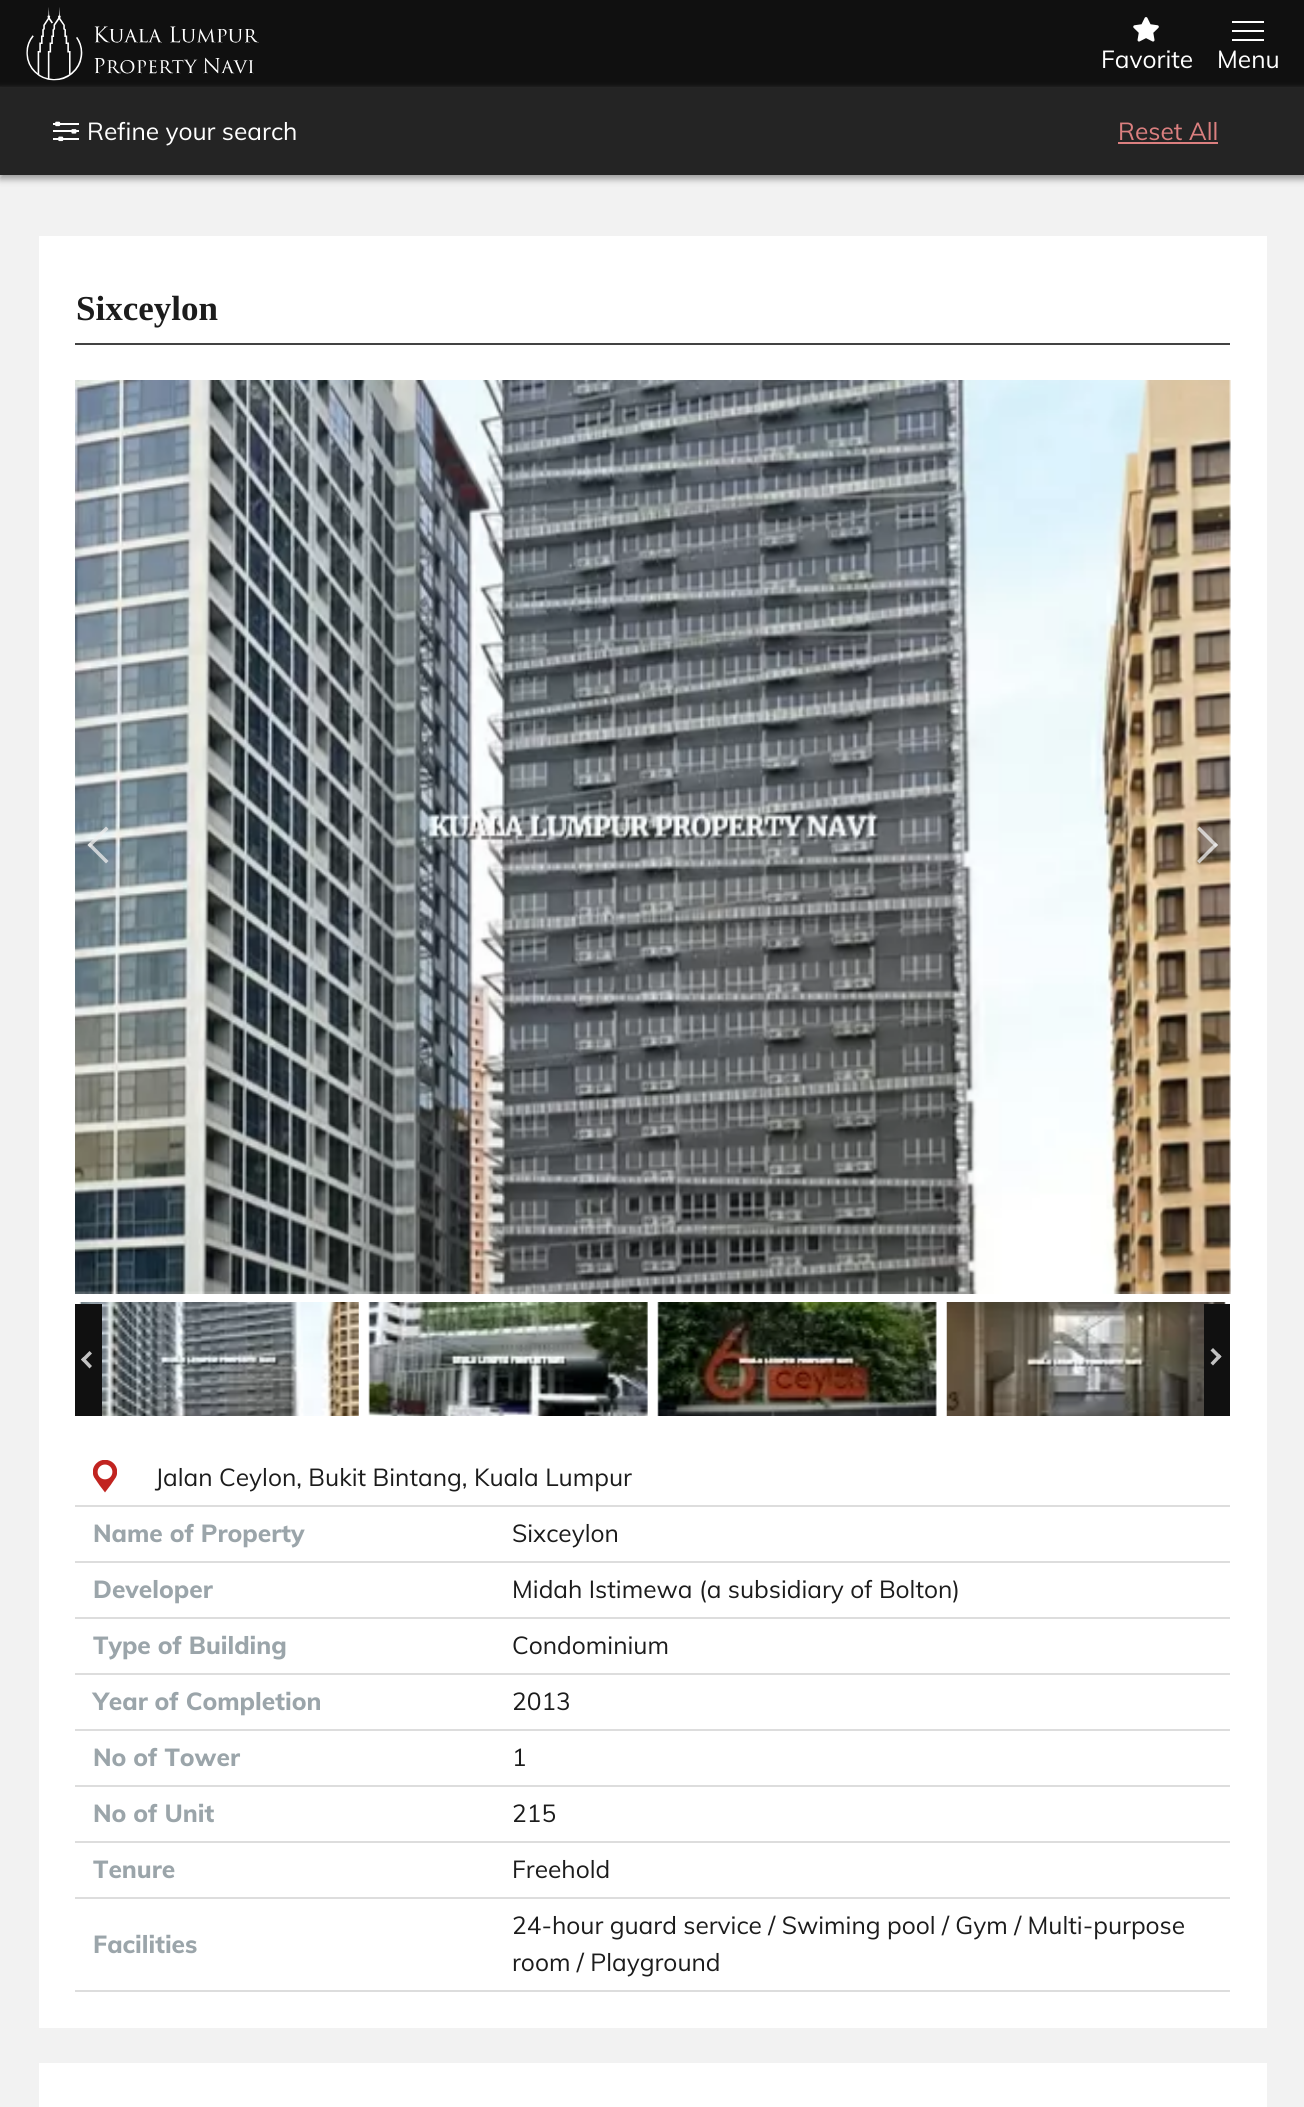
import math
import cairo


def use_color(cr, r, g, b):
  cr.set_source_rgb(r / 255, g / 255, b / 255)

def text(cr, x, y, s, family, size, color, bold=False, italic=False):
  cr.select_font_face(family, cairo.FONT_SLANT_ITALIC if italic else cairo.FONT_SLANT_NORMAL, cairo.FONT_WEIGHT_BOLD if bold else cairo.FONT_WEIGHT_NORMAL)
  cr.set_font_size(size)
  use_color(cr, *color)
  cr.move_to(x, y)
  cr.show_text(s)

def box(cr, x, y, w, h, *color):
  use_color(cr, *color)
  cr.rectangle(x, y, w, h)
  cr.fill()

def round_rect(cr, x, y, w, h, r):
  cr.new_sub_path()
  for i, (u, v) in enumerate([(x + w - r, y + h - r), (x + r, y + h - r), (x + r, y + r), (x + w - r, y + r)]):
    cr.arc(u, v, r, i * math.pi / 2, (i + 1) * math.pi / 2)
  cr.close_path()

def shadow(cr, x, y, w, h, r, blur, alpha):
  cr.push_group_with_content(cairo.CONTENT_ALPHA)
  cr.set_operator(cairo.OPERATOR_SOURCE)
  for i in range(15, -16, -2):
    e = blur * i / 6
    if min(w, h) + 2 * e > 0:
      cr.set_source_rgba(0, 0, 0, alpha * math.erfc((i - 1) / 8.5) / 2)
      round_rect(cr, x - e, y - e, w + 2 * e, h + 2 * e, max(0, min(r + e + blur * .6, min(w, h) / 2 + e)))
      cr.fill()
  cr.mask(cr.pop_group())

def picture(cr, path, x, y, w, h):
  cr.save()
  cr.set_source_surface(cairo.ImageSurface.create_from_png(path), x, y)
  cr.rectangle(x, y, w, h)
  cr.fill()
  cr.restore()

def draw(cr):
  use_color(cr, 242, 242, 242)
  cr.paint()
  box(cr, 0, 0, 1304, 88, 16, 16, 16)
  picture(cr, "img_01.png", 26, 7, 233, 74)
  picture(cr, "img_02.png", 1133, 17, 26, 25)
  box(cr, 1232, 21, 32, 2, 255, 255, 255)
  box(cr, 1232, 30, 32, 2, 255, 255, 255)
  box(cr, 1232, 39, 32, 2, 255, 255, 255)
  use_color(cr, 153, 153, 153)
  shadow(cr, 0, 91, 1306, 88, 0, 3.5, 1)
  box(cr, 0, 88, 1304, 87, 36, 36, 36)
  picture(cr, "img_03.png", 53, 121, 26, 21)
  box(cr, 1118, 142, 100, 2, 219, 127, 127)
  box(cr, 39, 236, 1228, 1792, 255, 255, 255)
  box(cr, 75, 343, 1155, 2, 67, 67, 67)
  picture(cr, "img_04.png", 75, 380, 1156, 914)
  cr.set_source_rgba(0.933, 0.933, 0.933, 0.75)
  cr.new_path()
  cr.move_to(87.5, 845)
  cr.line_to(106, 826.5)
  cr.line_to(108.5, 829)
  cr.line_to(90, 847.5)
  cr.close_path()
  cr.fill()
  cr.new_path()
  cr.move_to(87.5, 845)
  cr.line_to(90, 842.5)
  cr.line_to(108.5, 861)
  cr.line_to(106, 863.5)
  cr.close_path()
  cr.fill()
  cr.new_path()
  cr.move_to(1199.5, 826.5)
  cr.line_to(1218, 845)
  cr.line_to(1215.5, 847.5)
  cr.line_to(1197, 829)
  cr.close_path()
  cr.fill()
  cr.new_path()
  cr.move_to(1215.5, 842.5)
  cr.line_to(1218, 845)
  cr.line_to(1199.5, 863.5)
  cr.line_to(1197, 861)
  cr.close_path()
  cr.fill()
  picture(cr, "img_05.png", 79, 1302, 280, 114)
  picture(cr, "img_06.png", 368, 1302, 280, 114)
  picture(cr, "img_07.png", 657, 1302, 280, 114)
  picture(cr, "img_08.png", 946, 1302, 280, 114)
  box(cr, 75, 1304, 27, 112, 16, 16, 16)
  use_color(cr, 195, 195, 195)
  cr.new_path()
  cr.move_to(81, 1359.5)
  cr.line_to(89.5, 1351)
  cr.line_to(92, 1353.5)
  cr.line_to(83.5, 1362)
  cr.close_path()
  cr.fill()
  cr.new_path()
  cr.move_to(81, 1359.5)
  cr.line_to(83.5, 1357)
  cr.line_to(92, 1366)
  cr.line_to(89.5, 1368.5)
  cr.close_path()
  cr.fill()
  box(cr, 1204, 1304, 26, 112, 16, 16, 16)
  use_color(cr, 195, 195, 195)
  cr.new_path()
  cr.move_to(1213, 1348)
  cr.line_to(1221.5, 1356.5)
  cr.line_to(1219, 1359)
  cr.line_to(1210.5, 1350.5)
  cr.close_path()
  cr.fill()
  cr.new_path()
  cr.move_to(1219, 1354)
  cr.line_to(1221.5, 1356.5)
  cr.line_to(1213, 1365.5)
  cr.line_to(1210.5, 1363)
  cr.close_path()
  cr.fill()
  box(cr, 75, 1505, 1155, 2, 221, 221, 221)
  picture(cr, "img_09.png", 93, 1460, 24, 33)
  box(cr, 75, 1561, 1155, 2, 221, 221, 221)
  box(cr, 75, 1617, 1155, 2, 221, 221, 221)
  box(cr, 75, 1673, 1155, 2, 221, 221, 221)
  box(cr, 75, 1729, 1155, 2, 221, 221, 221)
  box(cr, 75, 1785, 1155, 2, 221, 221, 221)
  box(cr, 75, 1841, 1155, 2, 221, 221, 221)
  box(cr, 75, 1897, 1155, 2, 221, 221, 221)
  box(cr, 75, 1990, 1155, 2, 221, 221, 221)
  box(cr, 39, 2063, 1228, 44, 255, 255, 255)
  text(cr, 1101, 68, "Favorite", "Muli", 24.5, (255, 255, 255))
  text(cr, 1217, 68, "Menu", "Muli", 24.5, (255, 255, 255))
  text(cr, 87, 140, "Refine your search", "Muli", 24.5, (255, 255, 255))
  text(cr, 1118, 140, "Reset All", "Muli", 24.5, (219, 127, 127))
  text(cr, 76, 320, "Sixceylon", "Liberation Serif", 35, (28, 28, 28), bold=True)
  text(cr, 155, 1486, "Jalan Ceylon, Bukit Bintang, Kuala Lumpur", "Muli", 24.5, (28, 28, 28))
  text(cr, 93, 1542, "Name of Property", "Muli ExtraBold", 24.5, (155, 165, 170))
  text(cr, 512, 1542, "Sixceylon", "Muli", 24.5, (28, 28, 28))
  text(cr, 93, 1598, "Developer", "Muli ExtraBold", 24.5, (155, 165, 170))
  text(cr, 512, 1598, "Midah Istimewa (a subsidiary of Bolton)", "Muli", 24.5, (28, 28, 28))
  text(cr, 93, 1654, "Type of Building", "Muli ExtraBold", 24.5, (155, 165, 170))
  text(cr, 512, 1654, "Condominium", "Muli", 24.5, (28, 28, 28))
  text(cr, 93, 1710, "Year of Completion", "Muli ExtraBold", 24.5, (155, 165, 170))
  text(cr, 512, 1710, "2013", "Muli", 24.5, (28, 28, 28))
  text(cr, 93, 1766, "No of Tower", "Muli ExtraBold", 24.5, (155, 165, 170))
  text(cr, 512, 1766, "1", "Muli", 24.5, (28, 28, 28))
  text(cr, 93, 1822, "No of Unit", "Muli ExtraBold", 24.5, (155, 165, 170))
  text(cr, 512, 1822, "215", "Muli", 24.5, (28, 28, 28))
  text(cr, 93, 1878, "Tenure", "Muli ExtraBold", 24.5, (155, 165, 170))
  text(cr, 512, 1878, "Freehold", "Muli", 24.5, (28, 28, 28))
  text(cr, 93, 1953, "Facilities", "Muli ExtraBold", 24.5, (155, 165, 170))
  text(cr, 512, 1934, "24-hour guard service / Swiming pool / Gym / Multi-purpose", "Muli", 24.5, (28, 28, 28))
  text(cr, 512, 1971, "room / Playground", "Muli", 24.5, (28, 28, 28))


surface = cairo.ImageSurface(cairo.FORMAT_RGB24, 1304, 2107)
cr = cairo.Context(surface)
options = cairo.FontOptions()
options.set_hint_metrics(cairo.HINT_METRICS_OFF)
options.set_hint_style(cairo.HINT_STYLE_NONE)
cr.set_font_options(options)
cr.set_miter_limit(4)
draw(cr)
surface.write_to_png("out.png")
